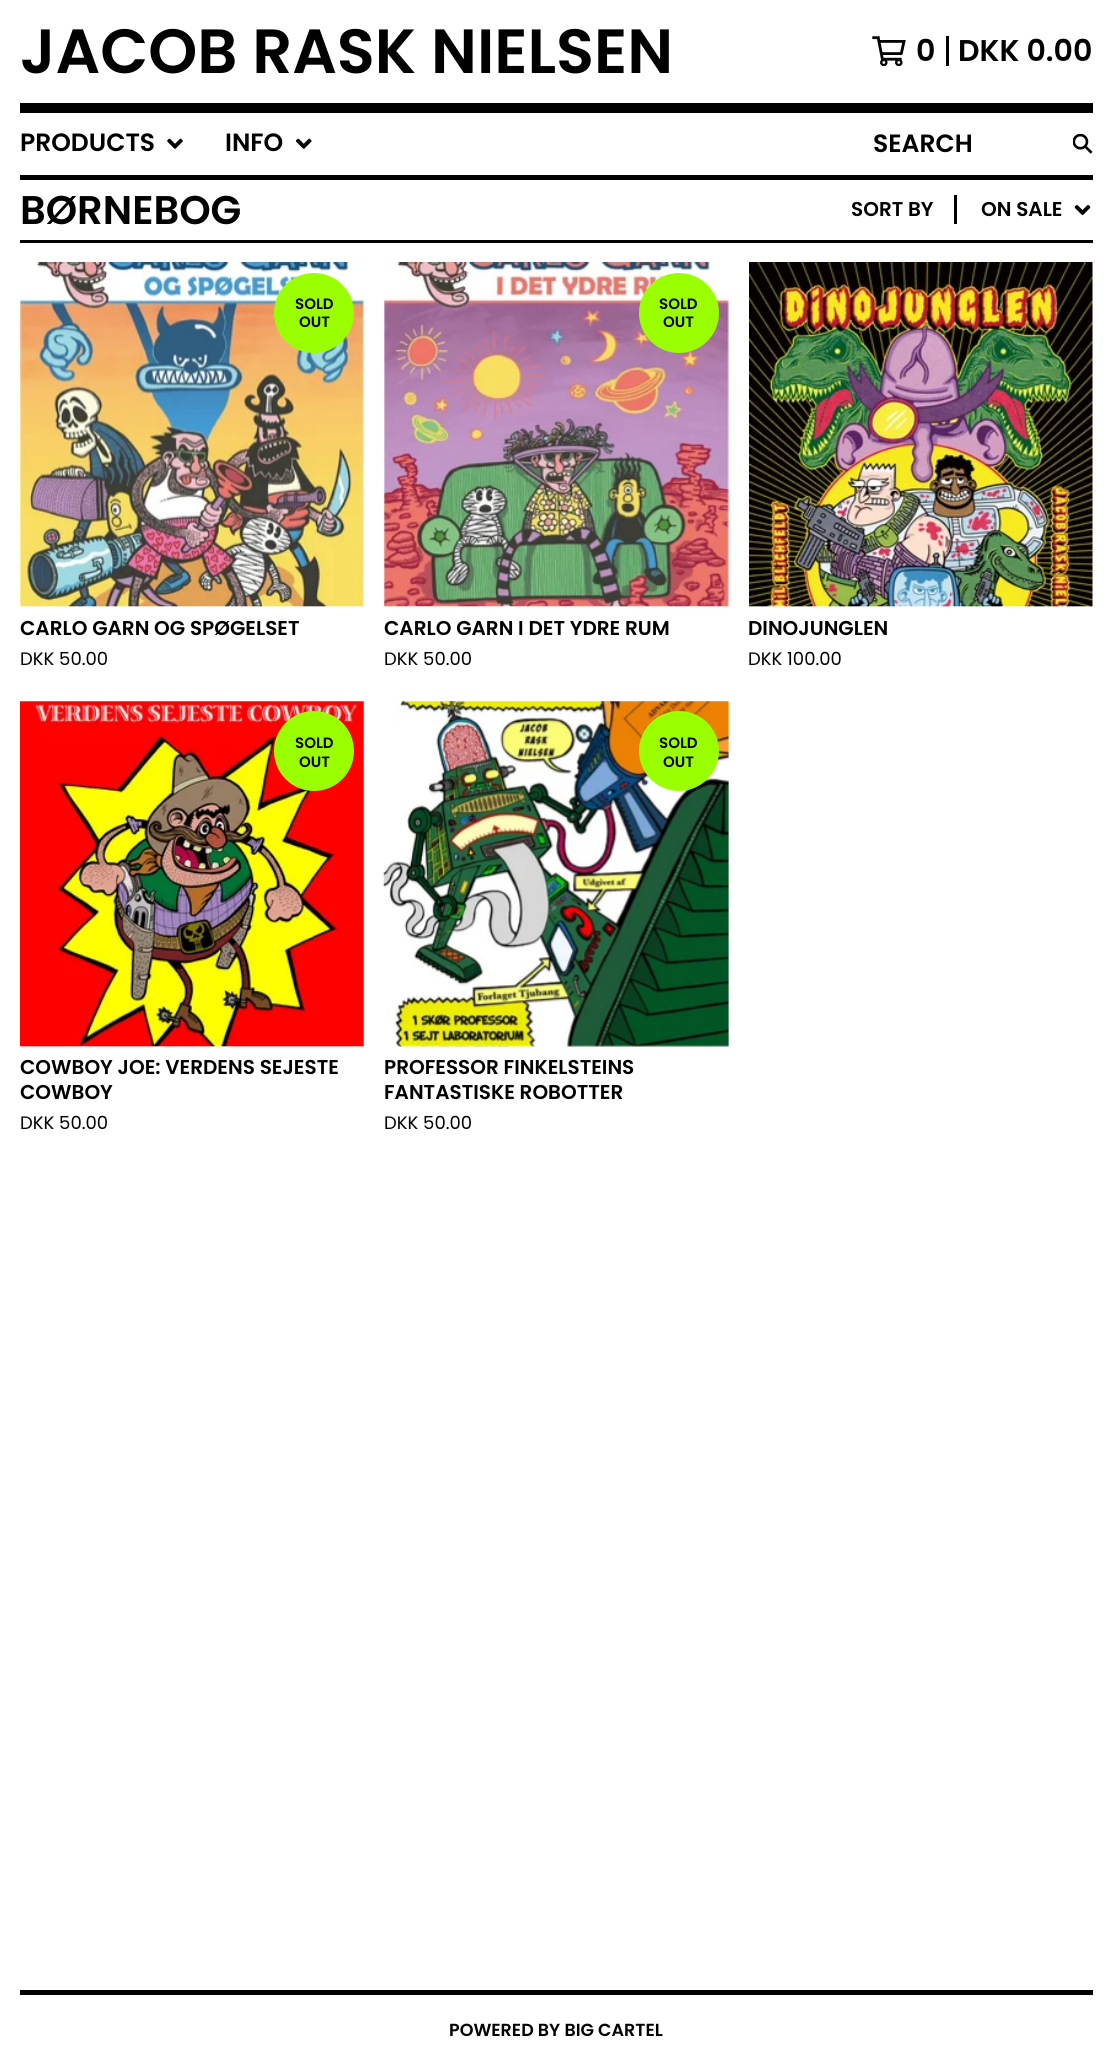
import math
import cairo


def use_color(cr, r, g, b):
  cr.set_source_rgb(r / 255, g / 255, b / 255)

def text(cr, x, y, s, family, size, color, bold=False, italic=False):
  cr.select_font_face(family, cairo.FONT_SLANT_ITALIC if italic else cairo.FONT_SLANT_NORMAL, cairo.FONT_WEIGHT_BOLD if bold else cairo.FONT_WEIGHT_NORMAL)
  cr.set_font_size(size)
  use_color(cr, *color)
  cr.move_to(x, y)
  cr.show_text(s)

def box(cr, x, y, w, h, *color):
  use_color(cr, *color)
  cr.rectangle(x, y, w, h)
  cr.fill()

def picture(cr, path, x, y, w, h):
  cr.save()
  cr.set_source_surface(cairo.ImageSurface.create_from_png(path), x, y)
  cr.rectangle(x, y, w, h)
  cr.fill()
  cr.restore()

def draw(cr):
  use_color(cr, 255, 255, 255)
  cr.paint()
  box(cr, 20, 103, 1073, 10, 0, 0, 0)
  picture(cr, "img_01.png", 872, 36, 34, 30)
  box(cr, 946, 36, 3, 30, 0, 0, 0)
  box(cr, 20, 175, 1073, 5, 0, 0, 0)
  picture(cr, "img_02.png", 167, 138, 16, 11)
  picture(cr, "img_03.png", 296, 138, 16, 11)
  picture(cr, "img_04.png", 1073, 134, 20, 20)
  box(cr, 20, 240, 1073, 3, 0, 0, 0)
  box(cr, 954, 195, 3, 29, 0, 0, 0)
  picture(cr, "img_05.png", 1074, 205, 17, 10)
  picture(cr, "img_06.png", 20, 262, 344, 345)
  use_color(cr, 154, 255, 0)
  cr.arc(314, 313, 40, 0, 2 * math.pi)
  cr.fill()
  picture(cr, "img_07.png", 384, 262, 345, 345)
  cr.arc(679, 313, 40, 0, 2 * math.pi)
  cr.fill()
  picture(cr, "img_08.png", 749, 262, 344, 345)
  picture(cr, "img_09.png", 20, 701, 344, 346)
  cr.arc(314, 751, 40, 0, 2 * math.pi)
  cr.fill()
  picture(cr, "img_10.png", 383, 701, 346, 346)
  cr.arc(679, 751, 40, 0, 2 * math.pi)
  cr.fill()
  box(cr, 20, 1990, 1073, 5, 0, 0, 0)
  text(cr, 20, 73, "JACOB RASK NIELSEN", "Poppins SemiBold", 62.4, (0, 0, 0))
  text(cr, 916, 61, "0", "Poppins SemiBold", 30, (0, 0, 0))
  text(cr, 958, 61, "DKK 0.00", "Poppins SemiBold", 30, (0, 0, 0))
  text(cr, 20, 151, "PRODUCTS", "Poppins SemiBold", 25, (0, 0, 0))
  text(cr, 225, 151, "INFO", "Poppins SemiBold", 25, (0, 0, 0))
  text(cr, 873, 152, "SEARCH", "Poppins SemiBold", 25, (0, 0, 0))
  text(cr, 20, 224, "BØRNEBOG", "Poppins SemiBold", 40, (0, 0, 0))
  text(cr, 851, 216, "SORT BY", "Poppins SemiBold", 20, (0, 0, 0))
  text(cr, 981, 216, "ON SALE", "Poppins SemiBold", 20, (0, 0, 0))
  text(cr, 295, 309, "SOLD", "Poppins SemiBold", 15, (0, 0, 0))
  text(cr, 299, 327, "OUT", "Poppins SemiBold", 15, (0, 0, 0))
  text(cr, 20, 635, "CARLO GARN OG SPØGELSET", "Poppins SemiBold", 20, (0, 0, 0))
  text(cr, 20, 665, "DKK 50.00", "Poppins", 18, (0, 0, 0))
  text(cr, 659, 309, "SOLD", "Poppins SemiBold", 15, (0, 0, 0))
  text(cr, 663, 327, "OUT", "Poppins SemiBold", 15, (0, 0, 0))
  text(cr, 384, 635, "CARLO GARN I DET YDRE RUM", "Poppins SemiBold", 20, (0, 0, 0))
  text(cr, 384, 665, "DKK 50.00", "Poppins", 18, (0, 0, 0))
  text(cr, 748, 635, "DINOJUNGLEN", "Poppins SemiBold", 20, (0, 0, 0))
  text(cr, 748, 665, "DKK 100.00", "Poppins", 18, (0, 0, 0))
  text(cr, 295, 748, "SOLD", "Poppins SemiBold", 15, (0, 0, 0))
  text(cr, 299, 767, "OUT", "Poppins SemiBold", 15, (0, 0, 0))
  text(cr, 20, 1074, "COWBOY JOE: VERDENS SEJESTE", "Poppins SemiBold", 20, (0, 0, 0))
  text(cr, 20, 1099, "COWBOY", "Poppins SemiBold", 20, (0, 0, 0))
  text(cr, 20, 1129, "DKK 50.00", "Poppins", 18, (0, 0, 0))
  text(cr, 659, 748, "SOLD", "Poppins SemiBold", 15, (0, 0, 0))
  text(cr, 663, 767, "OUT", "Poppins SemiBold", 15, (0, 0, 0))
  text(cr, 384, 1074, "PROFESSOR FINKELSTEINS", "Poppins SemiBold", 20, (0, 0, 0))
  text(cr, 384, 1099, "FANTASTISKE ROBOTTER", "Poppins SemiBold", 20, (0, 0, 0))
  text(cr, 384, 1129, "DKK 50.00", "Poppins", 18, (0, 0, 0))
  text(cr, 449, 2036, "POWERED BY BIG CARTEL", "Poppins SemiBold", 17.5, (0, 0, 0))


surface = cairo.ImageSurface(cairo.FORMAT_RGB24, 1112, 2064)
cr = cairo.Context(surface)
options = cairo.FontOptions()
options.set_hint_metrics(cairo.HINT_METRICS_OFF)
options.set_hint_style(cairo.HINT_STYLE_NONE)
cr.set_font_options(options)
cr.set_miter_limit(4)
draw(cr)
surface.write_to_png("out.png")
